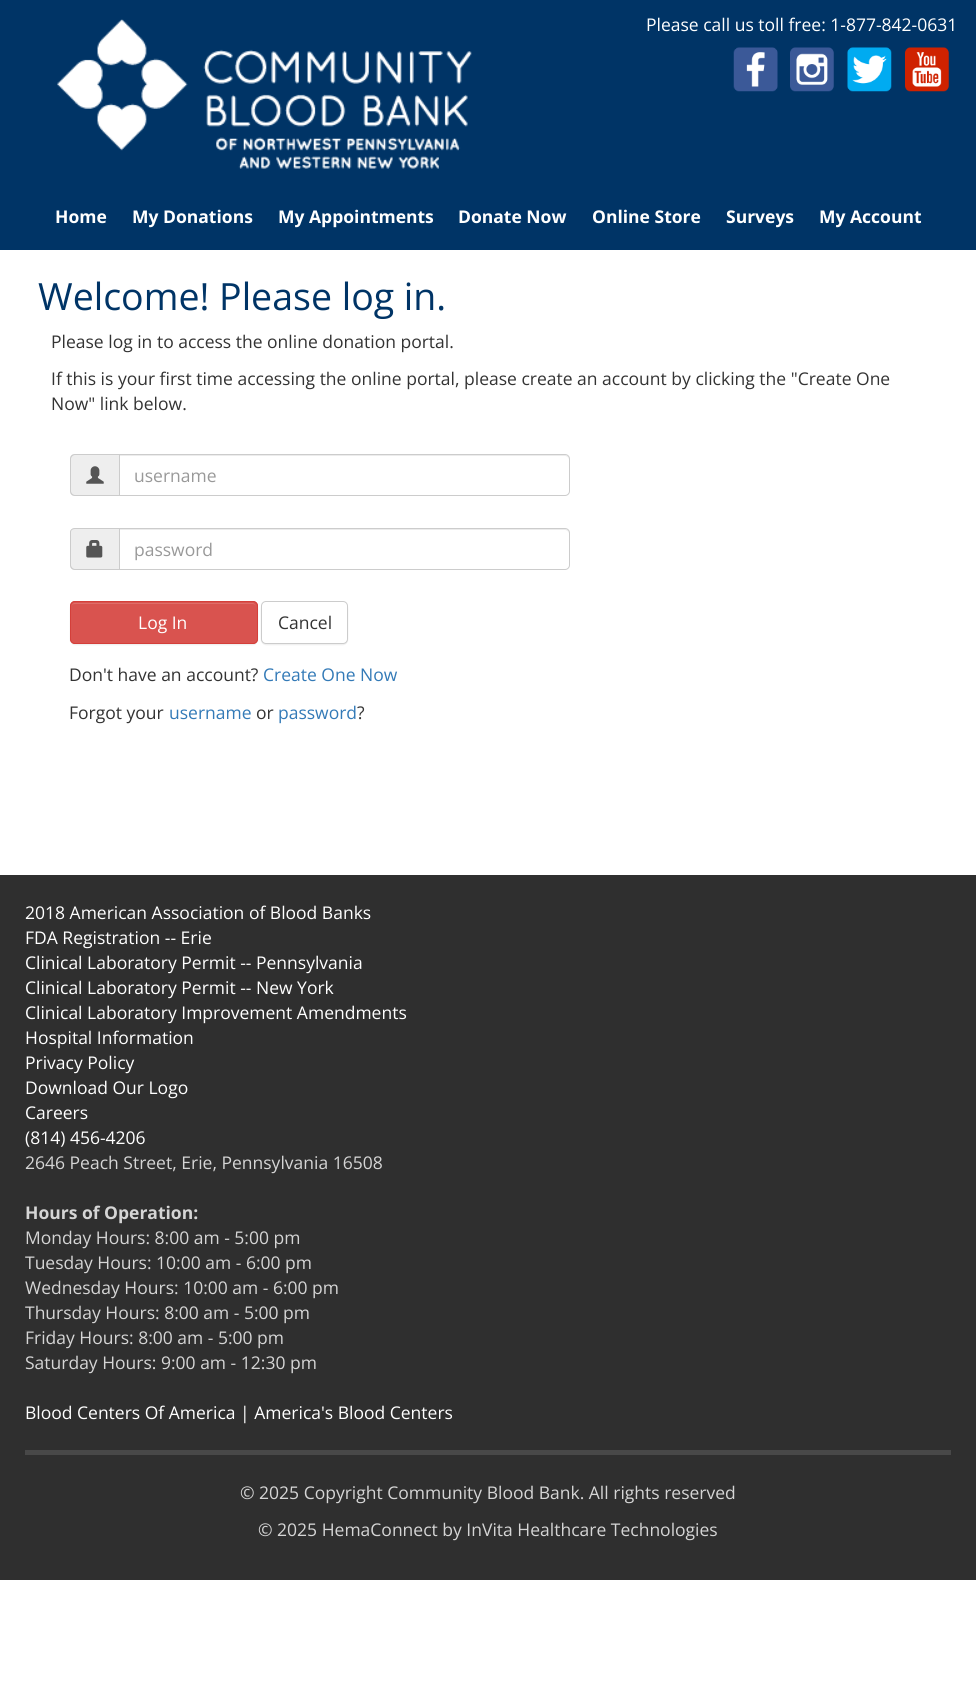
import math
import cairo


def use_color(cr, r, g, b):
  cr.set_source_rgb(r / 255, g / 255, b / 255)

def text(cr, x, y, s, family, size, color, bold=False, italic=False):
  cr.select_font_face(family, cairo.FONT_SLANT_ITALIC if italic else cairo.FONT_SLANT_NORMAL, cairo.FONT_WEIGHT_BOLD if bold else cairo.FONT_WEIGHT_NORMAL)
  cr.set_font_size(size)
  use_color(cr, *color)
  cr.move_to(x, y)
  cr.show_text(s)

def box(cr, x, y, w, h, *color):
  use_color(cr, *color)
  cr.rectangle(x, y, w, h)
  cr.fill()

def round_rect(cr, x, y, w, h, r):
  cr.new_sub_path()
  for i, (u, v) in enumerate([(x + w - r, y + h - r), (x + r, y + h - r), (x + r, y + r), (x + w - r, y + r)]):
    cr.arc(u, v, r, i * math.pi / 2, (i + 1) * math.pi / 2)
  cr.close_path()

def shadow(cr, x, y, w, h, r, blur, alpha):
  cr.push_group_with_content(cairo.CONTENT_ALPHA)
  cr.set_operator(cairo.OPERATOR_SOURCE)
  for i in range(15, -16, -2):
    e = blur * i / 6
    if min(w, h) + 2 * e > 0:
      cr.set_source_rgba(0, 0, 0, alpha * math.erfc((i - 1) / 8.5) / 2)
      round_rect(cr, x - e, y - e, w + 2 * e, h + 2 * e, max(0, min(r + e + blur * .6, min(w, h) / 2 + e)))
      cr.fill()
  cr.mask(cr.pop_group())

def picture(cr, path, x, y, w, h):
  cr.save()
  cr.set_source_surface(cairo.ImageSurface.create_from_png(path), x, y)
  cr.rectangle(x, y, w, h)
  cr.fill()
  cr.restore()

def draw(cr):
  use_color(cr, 255, 255, 255)
  cr.paint()
  box(cr, 0, 0, 976, 250, 0, 52, 102)
  picture(cr, "img_01.png", 57, 19, 415, 150)
  picture(cr, "img_02.png", 733, 47, 45, 45)
  picture(cr, "img_03.png", 790, 47, 44, 45)
  picture(cr, "img_04.png", 847, 47, 45, 45)
  picture(cr, "img_05.png", 905, 47, 44, 45)
  use_color(cr, 238, 238, 238)
  cr.new_path()
  cr.move_to(75, 454)
  cr.line_to(119, 454)
  cr.line_to(119, 496)
  cr.line_to(75, 496)
  cr.curve_to(72, 496, 70, 494, 70, 491)
  cr.line_to(70, 459)
  cr.curve_to(70, 456, 72, 454, 75, 454)
  cr.close_path()
  cr.fill()
  use_color(cr, 204, 204, 204)
  cr.set_fill_rule(cairo.FILL_RULE_EVEN_ODD)
  cr.new_path()
  cr.move_to(75, 454)
  cr.line_to(119, 454)
  cr.line_to(119, 496)
  cr.line_to(75, 496)
  cr.curve_to(72, 496, 70, 494, 70, 491)
  cr.line_to(70, 459)
  cr.curve_to(70, 456, 72, 454, 75, 454)
  cr.close_path()
  cr.move_to(75, 455)
  cr.line_to(119, 455)
  cr.line_to(119, 495)
  cr.line_to(75, 495)
  cr.curve_to(73, 495, 71, 493, 71, 491)
  cr.line_to(71, 459)
  cr.curve_to(71, 457, 73, 455, 75, 455)
  cr.close_path()
  cr.fill()
  picture(cr, "img_06.png", 86, 466, 18, 18)
  use_color(cr, 236, 236, 236)
  cr.set_fill_rule(cairo.FILL_RULE_WINDING)
  cr.new_path()
  cr.move_to(120, 456)
  cr.line_to(565, 456)
  cr.curve_to(567, 456, 569, 458, 569, 460)
  cr.line_to(569, 459)
  cr.curve_to(569, 457, 567, 455, 565, 455)
  cr.line_to(120, 455)
  cr.close_path()
  cr.fill()
  cr.new_path()
  cr.move_to(119.5, 454.5)
  cr.line_to(565, 454.5)
  cr.curve_to(567.5, 454.5, 569.5, 456.5, 569.5, 459)
  cr.line_to(569.5, 491)
  cr.curve_to(569.5, 493.5, 567.5, 495.5, 565, 495.5)
  cr.line_to(119.5, 495.5)
  cr.close_path()
  use_color(cr, 204, 204, 204)
  cr.set_line_width(1)
  cr.stroke()
  use_color(cr, 238, 238, 238)
  cr.new_path()
  cr.move_to(75, 528)
  cr.line_to(119, 528)
  cr.line_to(119, 570)
  cr.line_to(75, 570)
  cr.curve_to(72, 570, 70, 568, 70, 565)
  cr.line_to(70, 533)
  cr.curve_to(70, 530, 72, 528, 75, 528)
  cr.close_path()
  cr.fill()
  use_color(cr, 204, 204, 204)
  cr.set_fill_rule(cairo.FILL_RULE_EVEN_ODD)
  cr.new_path()
  cr.move_to(75, 528)
  cr.line_to(119, 528)
  cr.line_to(119, 570)
  cr.line_to(75, 570)
  cr.curve_to(72, 570, 70, 568, 70, 565)
  cr.line_to(70, 532)
  cr.curve_to(70, 530, 72, 528, 75, 528)
  cr.close_path()
  cr.move_to(75, 529)
  cr.line_to(119, 529)
  cr.line_to(119, 569)
  cr.line_to(75, 569)
  cr.curve_to(73, 569, 71, 567, 71, 565)
  cr.line_to(71, 532)
  cr.curve_to(71, 530, 73, 529, 75, 529)
  cr.close_path()
  cr.fill()
  picture(cr, "img_07.png", 86, 540, 17, 18)
  use_color(cr, 236, 236, 236)
  cr.set_fill_rule(cairo.FILL_RULE_WINDING)
  cr.new_path()
  cr.move_to(120, 530)
  cr.line_to(565, 530)
  cr.curve_to(567, 530, 569, 532, 569, 534)
  cr.line_to(569, 533)
  cr.curve_to(569, 531, 567, 529, 565, 529)
  cr.line_to(120, 529)
  cr.close_path()
  cr.fill()
  cr.new_path()
  cr.move_to(119.5, 528.5)
  cr.line_to(565, 528.5)
  cr.curve_to(567.5, 528.5, 569.5, 530.5, 569.5, 533)
  cr.line_to(569.5, 565)
  cr.curve_to(569.5, 567.5, 567.5, 569.5, 565, 569.5)
  cr.line_to(119.5, 569.5)
  cr.close_path()
  use_color(cr, 204, 204, 204)
  cr.stroke()
  use_color(cr, 0, 0, 0)
  shadow(cr, 70, 603, 188, 42, 5, 0.5, 0.07)
  use_color(cr, 217, 83, 79)
  round_rect(cr, 70, 601, 188, 43, 5)
  cr.fill()
  use_color(cr, 223, 109, 105)
  cr.new_path()
  cr.move_to(75, 604)
  cr.line_to(252, 604)
  cr.curve_to(255, 604, 256, 605, 256, 608)
  cr.curve_to(256, 605, 255, 603, 252, 603)
  cr.line_to(74, 603)
  cr.curve_to(72, 604, 71, 606, 71, 608)
  cr.curve_to(71, 605, 73, 604, 75, 604)
  cr.close_path()
  cr.fill()
  round_rect(cr, 70.5, 601.5, 187, 42, 4.5)
  use_color(cr, 212, 63, 58)
  cr.stroke()
  use_color(cr, 0, 0, 0)
  shadow(cr, 261, 603, 87, 42, 5, 0.5, 0.07)
  use_color(cr, 255, 255, 255)
  round_rect(cr, 261.5, 601.5, 86, 42, 4.5)
  cr.fill_preserve()
  use_color(cr, 204, 204, 204)
  cr.stroke()
  box(cr, 0, 875, 976, 705, 47, 47, 47)
  box(cr, 25, 1450, 926, 5, 72, 72, 72)
  text(cr, 646, 31, "Please call us toll free: 1-877-842-0631", "Open Sans", 17.5, (255, 255, 255))
  text(cr, 55, 223, "Home", "Open Sans", 17.5, (255, 255, 255), bold=True)
  text(cr, 132, 223, "My Donations", "Open Sans", 17.5, (255, 255, 255), bold=True)
  text(cr, 278, 223, "My Appointments", "Open Sans", 17.5, (255, 255, 255), bold=True)
  text(cr, 458, 223, "Donate Now", "Open Sans", 17.5, (255, 255, 255), bold=True)
  text(cr, 592, 223, "Online Store", "Open Sans", 17.5, (255, 255, 255), bold=True)
  text(cr, 726, 223, "Surveys", "Open Sans", 17.5, (255, 255, 255), bold=True)
  text(cr, 819, 223, "My Account", "Open Sans", 17.5, (255, 255, 255), bold=True)
  text(cr, 38, 310, "Welcome! Please log in.", "Open Sans", 37.5, (0, 52, 102))
  text(cr, 51, 348, "Please log in to access the online donation portal.", "Open Sans", 17.5, (51, 51, 51))
  text(cr, 51, 385, "If this is your first time accessing the online portal, please create an account by clicking the \"Create One", "Open Sans", 17.5, (51, 51, 51))
  text(cr, 51, 410, "Now\" link below.", "Open Sans", 17.5, (51, 51, 51))
  text(cr, 134, 482, "username", "Open Sans", 17.5, (153, 153, 153))
  text(cr, 134, 556, "password", "Open Sans", 17.5, (153, 153, 153))
  text(cr, 138, 629, "Log In", "Open Sans", 17.5, (255, 255, 255))
  text(cr, 278, 629, "Cancel", "Open Sans", 17.5, (51, 51, 51))
  text(cr, 69, 681, "Don't have an account?", "Open Sans", 17.5, (51, 51, 51))
  text(cr, 263, 681, "Create One Now", "Open Sans", 17.5, (51, 122, 183))
  text(cr, 69, 719, "Forgot your", "Open Sans", 17.5, (51, 51, 51))
  text(cr, 169, 719, "username", "Open Sans", 17.5, (51, 122, 183))
  text(cr, 256, 719, "or", "Open Sans", 17.5, (51, 51, 51))
  text(cr, 278, 719, "password", "Open Sans", 17.5, (51, 122, 183))
  text(cr, 357, 719, "?", "Open Sans", 17.5, (51, 51, 51))
  text(cr, 25, 919, "2018 American Association of Blood Banks", "Open Sans", 17.5, (255, 255, 255))
  text(cr, 25, 944, "FDA Registration -- Erie", "Open Sans", 17.5, (255, 255, 255))
  text(cr, 25, 969, "Clinical Laboratory Permit -- Pennsylvania", "Open Sans", 17.5, (255, 255, 255))
  text(cr, 25, 994, "Clinical Laboratory Permit -- New York", "Open Sans", 17.5, (255, 255, 255))
  text(cr, 25, 1019, "Clinical Laboratory Improvement Amendments", "Open Sans", 17.5, (255, 255, 255))
  text(cr, 25, 1044, "Hospital Information", "Open Sans", 17.5, (255, 255, 255))
  text(cr, 25, 1069, "Privacy Policy", "Open Sans", 17.5, (255, 255, 255))
  text(cr, 25, 1094, "Download Our Logo", "Open Sans", 17.5, (255, 255, 255))
  text(cr, 25, 1119, "Careers", "Open Sans", 17.5, (255, 255, 255))
  text(cr, 25, 1144, "(814) 456-4206", "Open Sans", 17.5, (255, 255, 255))
  text(cr, 25, 1169, "2646 Peach Street, Erie, Pennsylvania 16508", "Open Sans", 17.5, (213, 213, 213))
  text(cr, 25, 1219, "Hours of Operation:", "Open Sans", 17.5, (213, 213, 213), bold=True)
  text(cr, 25, 1244, "Monday Hours: 8:00 am - 5:00 pm", "Open Sans", 17.5, (213, 213, 213))
  text(cr, 25, 1269, "Tuesday Hours: 10:00 am - 6:00 pm", "Open Sans", 17.5, (213, 213, 213))
  text(cr, 25, 1294, "Wednesday Hours: 10:00 am - 6:00 pm", "Open Sans", 17.5, (213, 213, 213))
  text(cr, 25, 1319, "Thursday Hours: 8:00 am - 5:00 pm", "Open Sans", 17.5, (213, 213, 213))
  text(cr, 25, 1344, "Friday Hours: 8:00 am - 5:00 pm", "Open Sans", 17.5, (213, 213, 213))
  text(cr, 25, 1369, "Saturday Hours: 9:00 am - 12:30 pm", "Open Sans", 17.5, (213, 213, 213))
  text(cr, 25, 1419, "Blood Centers Of America | America's Blood Centers", "Open Sans", 17.5, (255, 255, 255))
  text(cr, 240, 1499, "© 2025 Copyright Community Blood Bank. All rights reserved", "Open Sans", 17.5, (213, 213, 213))
  text(cr, 258, 1536, "© 2025 HemaConnect by InVita Healthcare Technologies", "Open Sans", 17.5, (213, 213, 213))


surface = cairo.ImageSurface(cairo.FORMAT_RGB24, 976, 1687)
cr = cairo.Context(surface)
options = cairo.FontOptions()
options.set_hint_metrics(cairo.HINT_METRICS_OFF)
options.set_hint_style(cairo.HINT_STYLE_NONE)
cr.set_font_options(options)
cr.set_miter_limit(4)
draw(cr)
surface.write_to_png("out.png")
